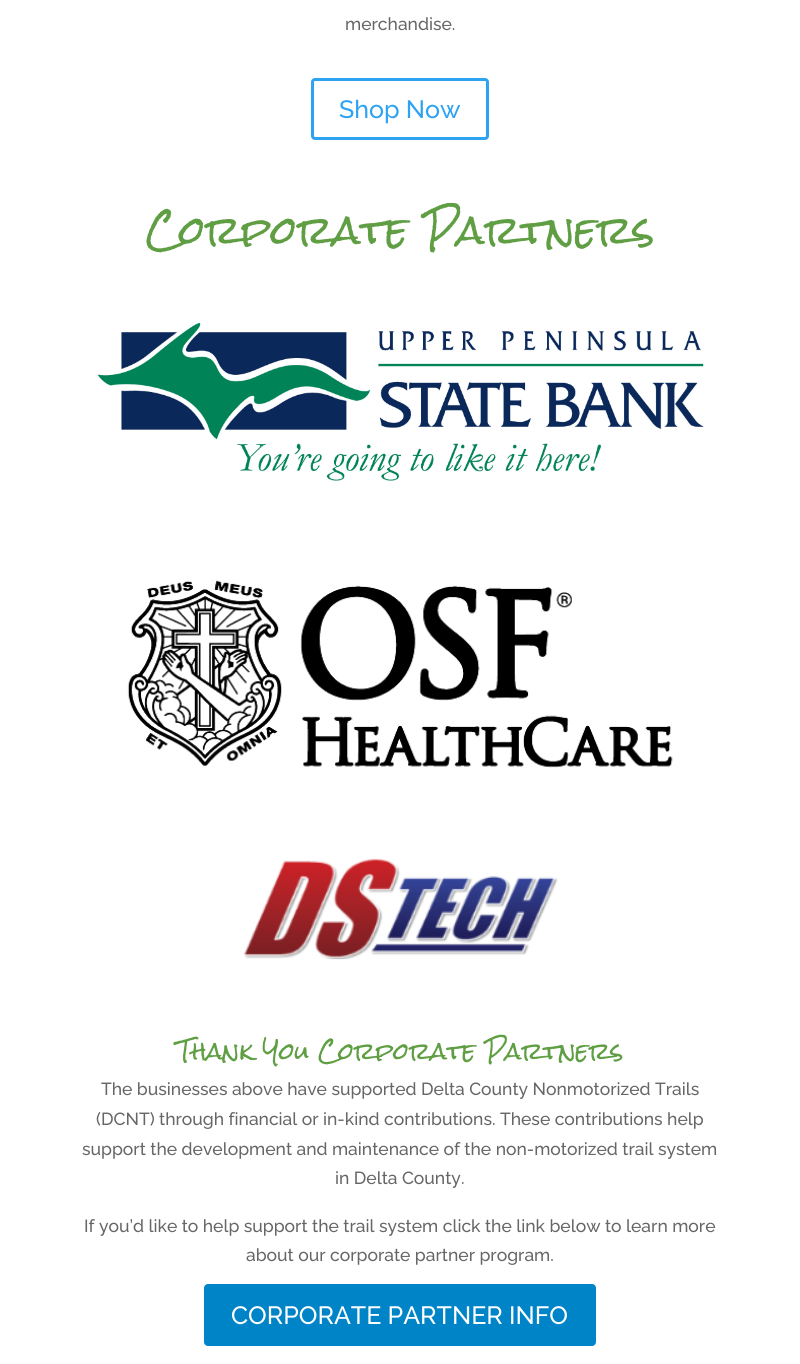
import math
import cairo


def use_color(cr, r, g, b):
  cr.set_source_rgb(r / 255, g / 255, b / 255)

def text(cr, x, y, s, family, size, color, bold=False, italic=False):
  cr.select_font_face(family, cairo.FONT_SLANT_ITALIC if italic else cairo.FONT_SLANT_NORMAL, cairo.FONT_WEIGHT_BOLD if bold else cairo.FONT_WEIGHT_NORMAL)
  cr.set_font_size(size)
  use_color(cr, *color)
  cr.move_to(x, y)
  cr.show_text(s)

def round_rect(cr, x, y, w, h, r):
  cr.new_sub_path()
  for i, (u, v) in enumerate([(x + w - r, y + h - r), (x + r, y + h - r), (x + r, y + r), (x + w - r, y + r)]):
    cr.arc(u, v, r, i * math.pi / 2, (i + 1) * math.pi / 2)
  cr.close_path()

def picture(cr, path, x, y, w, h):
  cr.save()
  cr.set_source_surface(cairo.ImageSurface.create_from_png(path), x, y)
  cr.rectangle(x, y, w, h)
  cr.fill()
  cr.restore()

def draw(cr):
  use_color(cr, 255, 255, 255)
  cr.paint()
  round_rect(cr, 312.5, 79.5, 175, 59, 2.5)
  use_color(cr, 46, 163, 242)
  cr.set_line_width(3)
  cr.stroke()
  picture(cr, "img_01.png", 97, 323, 607, 158)
  picture(cr, "img_02.png", 127, 580, 546, 188)
  picture(cr, "img_03.png", 243, 858, 315, 102)
  use_color(cr, 0, 132, 200)
  round_rect(cr, 204, 1284, 392, 62, 4)
  cr.fill()
  text(cr, 345, 30, "merchandise.", "Raleway Medium", 17.5, (102, 102, 102))
  text(cr, 339, 118, "Shop Now", "Raleway Medium", 25, (46, 163, 242))
  text(cr, 146, 245, "Corporate Partners", "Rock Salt", 37.5, (95, 158, 67))
  text(cr, 177, 1060, "Thank You Corporate Partners", "Rock Salt", 22.5, (95, 158, 67))
  text(cr, 101, 1095, "The businesses above have supported Delta County Nonmotorized Trails", "Raleway Medium", 17.5, (102, 102, 102))
  text(cr, 96, 1125, "(DCNT) through financial or in-kind contributions. These contributions help", "Raleway Medium", 17.5, (102, 102, 102))
  text(cr, 82, 1155, "support the development and maintenance of the non-motorized trail system", "Raleway Medium", 17.5, (102, 102, 102))
  text(cr, 335, 1184, "in Delta County.", "Raleway Medium", 17.5, (102, 102, 102))
  text(cr, 84, 1232, "If you’d like to help support the trail system click the link below to learn more", "Raleway Medium", 17.5, (102, 102, 102))
  text(cr, 246, 1261, "about our corporate partner program.", "Raleway Medium", 17.5, (102, 102, 102))
  text(cr, 231, 1324, "CORPORATE PARTNER INFO", "Raleway Medium", 25, (255, 255, 255))


surface = cairo.ImageSurface(cairo.FORMAT_RGB24, 800, 1364)
cr = cairo.Context(surface)
options = cairo.FontOptions()
options.set_hint_metrics(cairo.HINT_METRICS_OFF)
options.set_hint_style(cairo.HINT_STYLE_NONE)
cr.set_font_options(options)
cr.set_miter_limit(4)
draw(cr)
surface.write_to_png("out.png")
